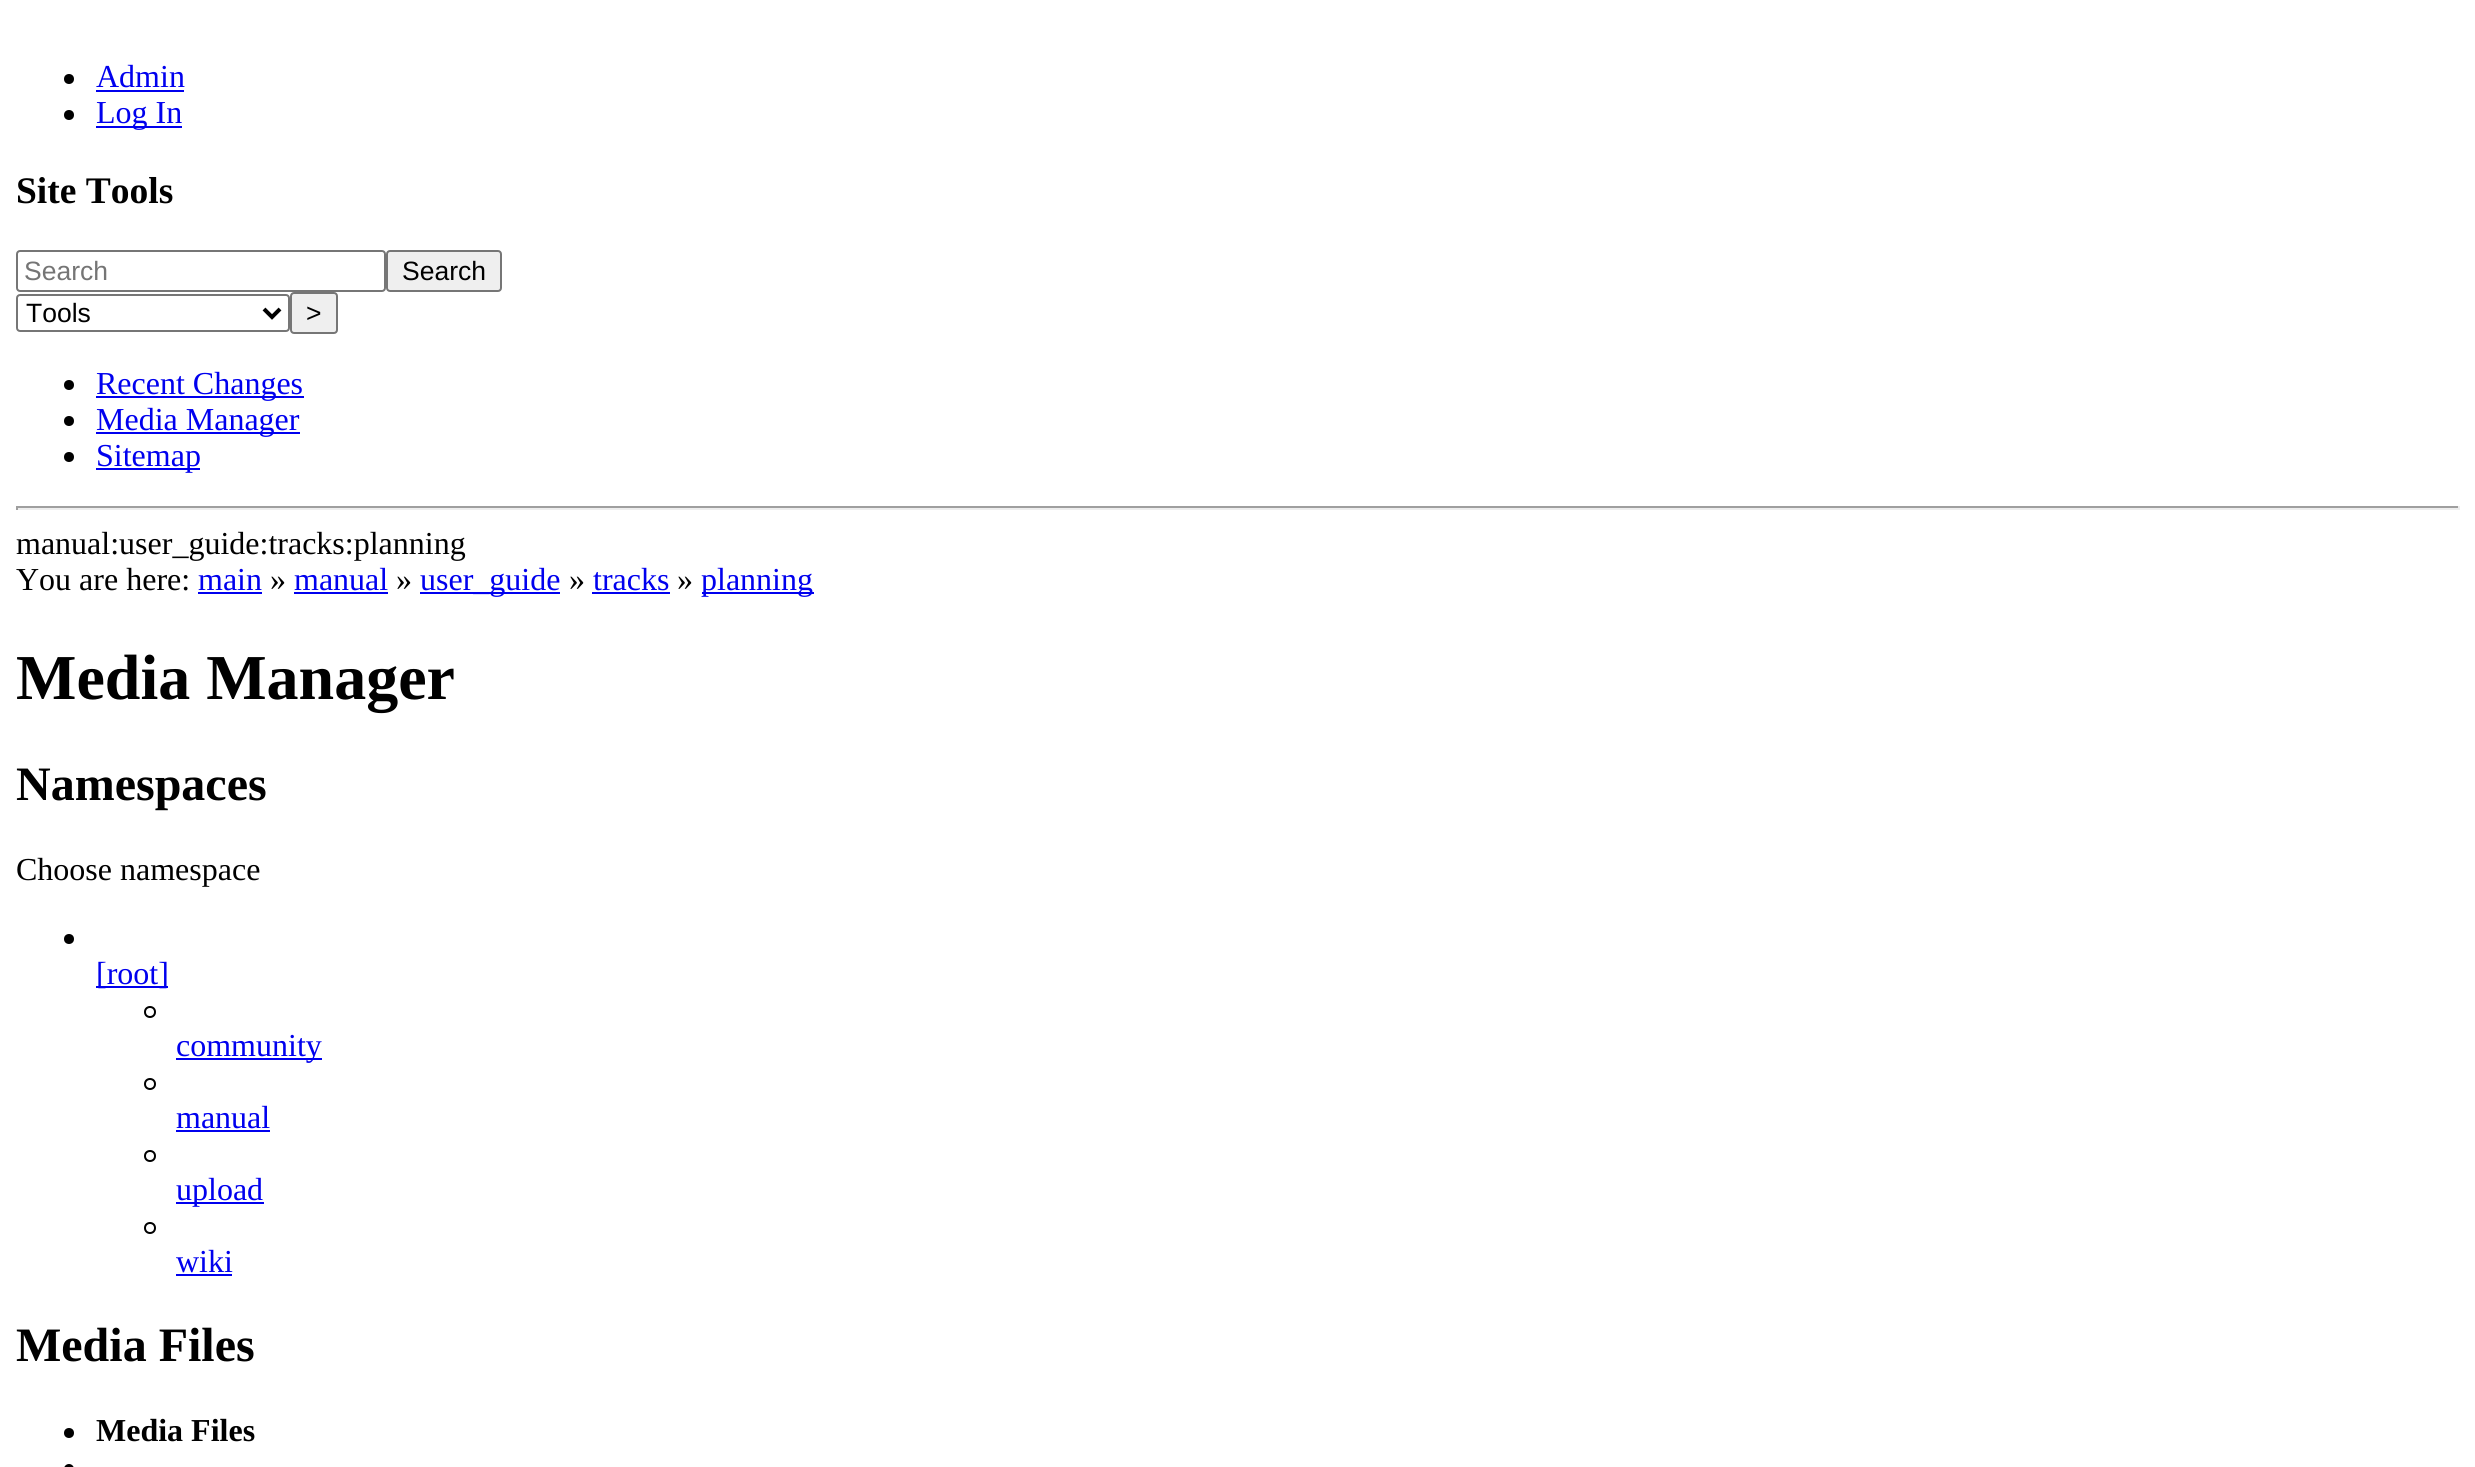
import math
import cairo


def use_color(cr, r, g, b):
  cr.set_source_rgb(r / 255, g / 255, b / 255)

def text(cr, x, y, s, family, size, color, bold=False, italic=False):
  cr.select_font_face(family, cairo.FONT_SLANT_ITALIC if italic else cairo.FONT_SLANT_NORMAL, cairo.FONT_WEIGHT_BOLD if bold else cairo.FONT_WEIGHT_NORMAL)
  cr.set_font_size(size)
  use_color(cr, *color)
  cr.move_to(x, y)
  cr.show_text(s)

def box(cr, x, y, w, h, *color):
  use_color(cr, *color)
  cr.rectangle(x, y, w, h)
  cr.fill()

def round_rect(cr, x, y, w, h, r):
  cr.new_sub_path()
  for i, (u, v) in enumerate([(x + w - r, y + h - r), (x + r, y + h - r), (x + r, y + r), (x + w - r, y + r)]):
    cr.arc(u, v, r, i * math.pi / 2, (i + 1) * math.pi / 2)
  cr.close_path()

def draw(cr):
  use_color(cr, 255, 255, 255)
  cr.paint()
  use_color(cr, 0, 0, 0)
  cr.arc(69, 79, 5, 0, 2 * math.pi)
  cr.fill()
  box(cr, 96, 90, 88, 2, 0, 0, 238)
  use_color(cr, 0, 0, 0)
  cr.arc(69, 115, 5, 0, 2 * math.pi)
  cr.fill()
  box(cr, 96, 126, 86, 2, 0, 0, 238)
  round_rect(cr, 17, 251, 368, 40, 3)
  use_color(cr, 118, 118, 118)
  cr.stroke()
  use_color(cr, 239, 239, 239)
  round_rect(cr, 387, 251, 114, 40, 3)
  cr.fill_preserve()
  use_color(cr, 118, 118, 118)
  cr.stroke()
  round_rect(cr, 17, 295, 272, 36, 3)
  cr.stroke()
  cr.new_path()
  cr.move_to(264, 309)
  cr.line_to(272, 317)
  cr.line_to(280, 309)
  use_color(cr, 0, 0, 0)
  cr.set_line_width(4)
  cr.stroke()
  use_color(cr, 239, 239, 239)
  round_rect(cr, 291, 293, 46, 40, 3)
  cr.fill_preserve()
  use_color(cr, 118, 118, 118)
  cr.set_line_width(2)
  cr.stroke()
  use_color(cr, 0, 0, 0)
  cr.arc(69, 385, 5, 0, 2 * math.pi)
  cr.fill()
  box(cr, 96, 396, 208, 2, 0, 0, 238)
  use_color(cr, 0, 0, 0)
  cr.arc(69, 421, 5, 0, 2 * math.pi)
  cr.fill()
  box(cr, 96, 432, 204, 2, 0, 0, 238)
  use_color(cr, 0, 0, 0)
  cr.arc(69, 457, 5, 0, 2 * math.pi)
  cr.fill()
  box(cr, 96, 468, 104, 2, 0, 0, 238)
  box(cr, 16, 506, 2444, 2, 159, 159, 159)
  box(cr, 2458, 506, 2, 4, 238, 238, 238)
  box(cr, 16, 508, 2444, 2, 238, 238, 238)
  box(cr, 16, 506, 2, 4, 159, 159, 159)
  box(cr, 198, 592, 64, 2, 0, 0, 238)
  box(cr, 294, 592, 94, 2, 0, 0, 238)
  box(cr, 420, 592, 140, 2, 0, 0, 238)
  box(cr, 592, 592, 78, 2, 0, 0, 238)
  box(cr, 702, 592, 112, 2, 0, 0, 238)
  use_color(cr, 0, 0, 0)
  cr.arc(69, 939, 5, 0, 2 * math.pi)
  cr.fill()
  box(cr, 96, 986, 72, 2, 0, 0, 238)
  cr.arc(150, 1012, 5, 0, 2 * math.pi)
  use_color(cr, 0, 0, 0)
  cr.stroke()
  box(cr, 176, 1058, 146, 2, 0, 0, 238)
  cr.arc(150, 1084, 5, 0, 2 * math.pi)
  use_color(cr, 0, 0, 0)
  cr.stroke()
  box(cr, 176, 1130, 94, 2, 0, 0, 238)
  cr.arc(150, 1156, 5, 0, 2 * math.pi)
  use_color(cr, 0, 0, 0)
  cr.stroke()
  box(cr, 176, 1202, 88, 2, 0, 0, 238)
  cr.arc(150, 1228, 5, 0, 2 * math.pi)
  use_color(cr, 0, 0, 0)
  cr.stroke()
  box(cr, 176, 1274, 56, 2, 0, 0, 238)
  use_color(cr, 0, 0, 0)
  cr.arc(69, 1433, 5, 0, 2 * math.pi)
  cr.fill()
  round_rect(cr, 64, 1464, 10, 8, 5)
  cr.fill()
  text(cr, 96, 87, "Admin", "Liberation Serif", 32, (0, 0, 238))
  text(cr, 96, 123, "Log In", "Liberation Serif", 32, (0, 0, 238))
  text(cr, 16, 203, "Site Tools", "Liberation Serif", 37.5, (0, 0, 0), bold=True)
  text(cr, 24, 280, "Search", "Liberation Sans", 26.5, (117, 117, 117))
  text(cr, 402, 280, "Search", "Liberation Sans", 26.5, (0, 0, 0))
  text(cr, 26, 322, "Tools", "Liberation Sans", 26.5, (0, 0, 0))
  text(cr, 306, 322, ">", "Liberation Sans", 26.5, (0, 0, 0))
  text(cr, 96, 394, "Recent Changes", "Liberation Serif", 32, (0, 0, 238))
  text(cr, 96, 430, "Media Manager", "Liberation Serif", 32, (0, 0, 238))
  text(cr, 96, 466, "Sitemap", "Liberation Serif", 32, (0, 0, 238))
  text(cr, 16, 554, "manual:user_guide:tracks:planning", "Liberation Serif", 32, (0, 0, 0))
  text(cr, 16, 590, "You are here:", "Liberation Serif", 32, (0, 0, 0))
  text(cr, 198, 590, "main", "Liberation Serif", 32, (0, 0, 238))
  text(cr, 270, 590, "»", "Liberation Serif", 32, (0, 0, 0))
  text(cr, 294, 590, "manual", "Liberation Serif", 32, (0, 0, 238))
  text(cr, 396, 590, "»", "Liberation Serif", 32, (0, 0, 0))
  text(cr, 420, 590, "user_guide", "Liberation Serif", 32, (0, 0, 238))
  text(cr, 569, 590, "»", "Liberation Serif", 32, (0, 0, 0))
  text(cr, 593, 590, "tracks", "Liberation Serif", 32, (0, 0, 238))
  text(cr, 677, 590, "»", "Liberation Serif", 32, (0, 0, 0))
  text(cr, 701, 590, "planning", "Liberation Serif", 32, (0, 0, 238))
  text(cr, 16, 699, "Media Manager", "Liberation Serif", 64, (0, 0, 0), bold=True)
  text(cr, 16, 800, "Namespaces", "Liberation Serif", 48, (0, 0, 0), bold=True)
  text(cr, 16, 880, "Choose namespace", "Liberation Serif", 32, (0, 0, 0))
  text(cr, 96, 984, "[root]", "Liberation Serif", 32, (0, 0, 238))
  text(cr, 176, 1056, "community", "Liberation Serif", 32, (0, 0, 238))
  text(cr, 176, 1128, "manual", "Liberation Serif", 32, (0, 0, 238))
  text(cr, 176, 1200, "upload", "Liberation Serif", 32, (0, 0, 238))
  text(cr, 176, 1272, "wiki", "Liberation Serif", 32, (0, 0, 238))
  text(cr, 16, 1361, "Media Files", "Liberation Serif", 48, (0, 0, 0), bold=True)
  text(cr, 96, 1441, "Media Files", "Liberation Serif", 32, (0, 0, 0), bold=True)


surface = cairo.ImageSurface(cairo.FORMAT_RGB24, 2475, 1467)
cr = cairo.Context(surface)
options = cairo.FontOptions()
options.set_hint_metrics(cairo.HINT_METRICS_OFF)
options.set_hint_style(cairo.HINT_STYLE_NONE)
cr.set_font_options(options)
cr.set_miter_limit(4)
draw(cr)
surface.write_to_png("out.png")
